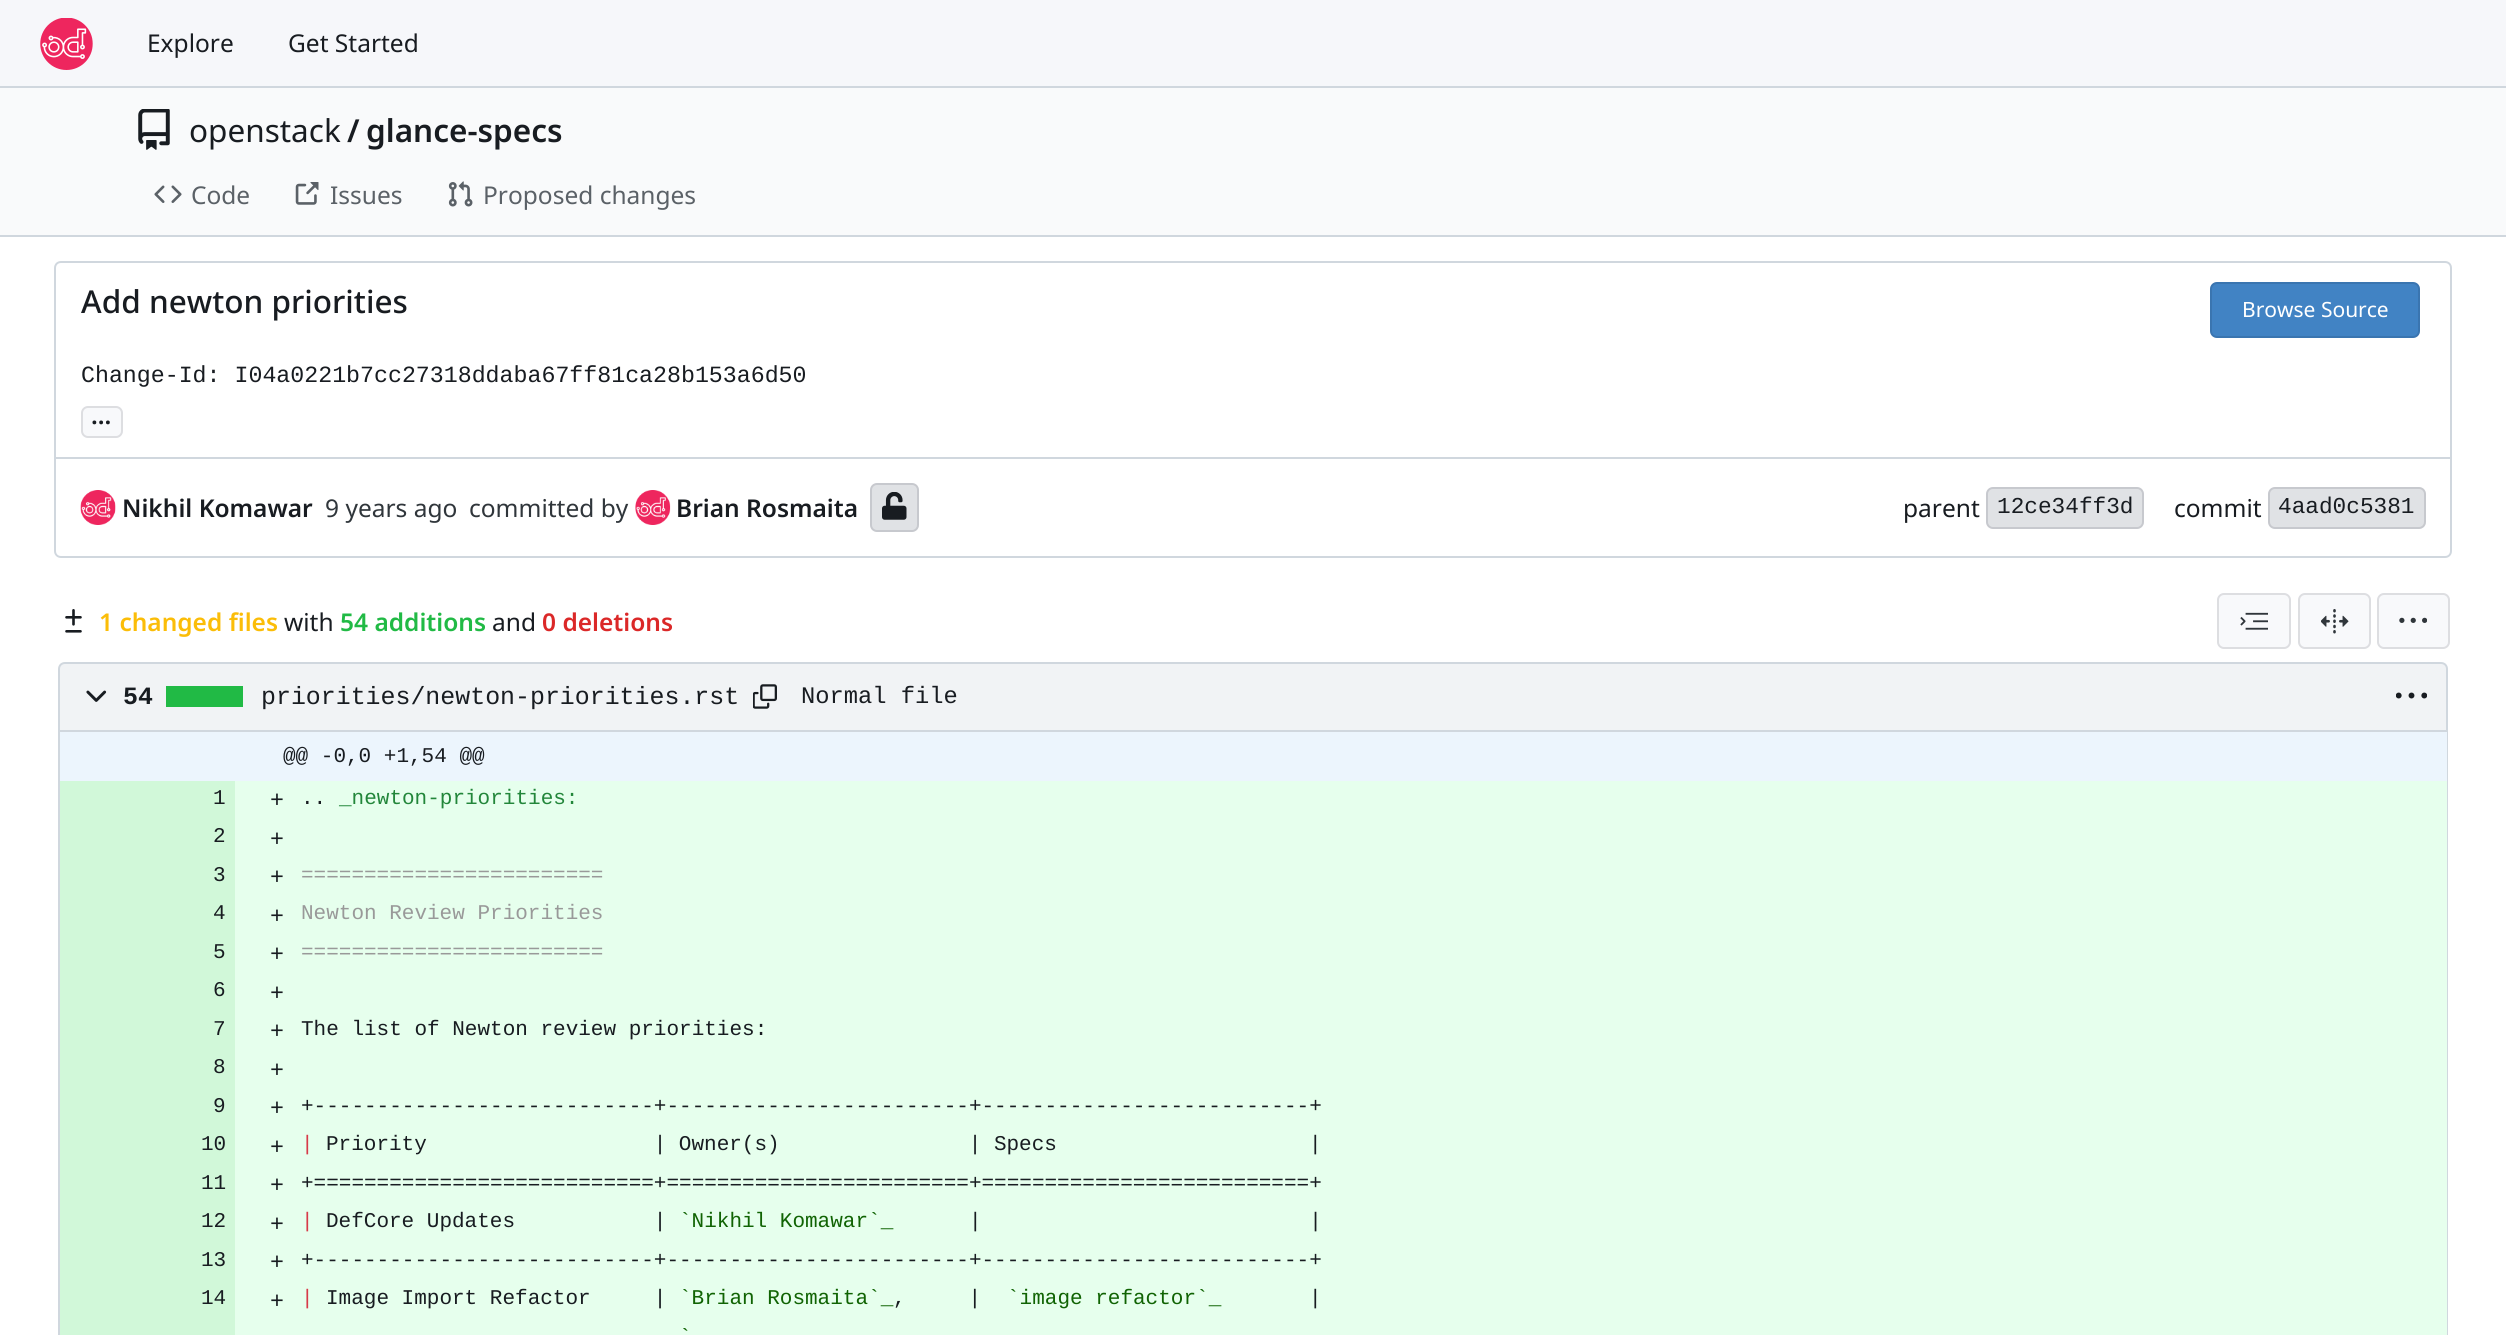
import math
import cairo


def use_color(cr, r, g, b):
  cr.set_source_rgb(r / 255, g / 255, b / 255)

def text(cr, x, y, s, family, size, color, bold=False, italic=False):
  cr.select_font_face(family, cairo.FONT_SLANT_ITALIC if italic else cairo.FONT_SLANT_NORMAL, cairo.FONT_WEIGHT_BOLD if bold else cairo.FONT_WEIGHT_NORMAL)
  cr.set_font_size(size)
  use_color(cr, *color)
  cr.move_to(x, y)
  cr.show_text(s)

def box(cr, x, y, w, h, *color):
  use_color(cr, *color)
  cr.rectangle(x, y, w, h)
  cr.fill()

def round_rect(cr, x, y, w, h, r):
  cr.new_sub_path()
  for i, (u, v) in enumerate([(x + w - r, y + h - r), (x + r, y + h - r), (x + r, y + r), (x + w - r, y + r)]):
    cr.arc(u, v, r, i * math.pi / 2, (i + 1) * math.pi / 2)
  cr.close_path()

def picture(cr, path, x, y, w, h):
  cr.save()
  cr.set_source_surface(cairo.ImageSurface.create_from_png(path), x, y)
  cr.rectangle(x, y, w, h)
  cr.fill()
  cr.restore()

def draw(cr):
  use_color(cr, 255, 255, 255)
  cr.paint()
  box(cr, 0, 0, 2506, 86, 246, 247, 250)
  box(cr, 0, 86, 2506, 2, 208, 215, 222)
  picture(cr, "img_01.png", 40, 18, 53, 52)
  box(cr, 0, 88, 2506, 147, 249, 250, 251)
  picture(cr, "img_02.png", 138, 109, 32, 41)
  picture(cr, "img_03.png", 154, 185, 28, 18)
  picture(cr, "img_04.png", 295, 182, 24, 23)
  picture(cr, "img_05.png", 448, 181, 25, 26)
  box(cr, 0, 235, 2506, 2, 208, 215, 222)
  cr.new_path()
  cr.move_to(61, 262)
  cr.line_to(2445, 262)
  cr.curve_to(2448.5, 262, 2451, 264.5, 2451, 268)
  cr.line_to(2451, 458)
  cr.line_to(55, 458)
  cr.line_to(55, 268)
  cr.curve_to(55, 264.5, 57.5, 262, 61, 262)
  cr.close_path()
  cr.stroke()
  use_color(cr, 65, 131, 196)
  round_rect(cr, 2210, 282, 210, 56, 7)
  cr.fill()
  round_rect(cr, 2211, 283, 208, 54, 6)
  cr.set_source_rgba(0, 0, 0.09, 0.11)
  cr.stroke()
  use_color(cr, 248, 249, 251)
  round_rect(cr, 81, 406, 42, 32, 7)
  cr.fill()
  round_rect(cr, 82, 407, 40, 30, 6)
  cr.set_source_rgba(0, 0, 0.09, 0.11)
  cr.stroke()
  use_color(cr, 208, 215, 222)
  cr.set_fill_rule(cairo.FILL_RULE_EVEN_ODD)
  cr.new_path()
  cr.move_to(54, 458)
  cr.line_to(2452, 458)
  cr.line_to(2452, 551)
  cr.curve_to(2452, 555, 2449, 558, 2445, 558)
  cr.line_to(61, 558)
  cr.curve_to(57, 558, 54, 555, 54, 551)
  cr.close_path()
  cr.move_to(56, 458)
  cr.line_to(2450, 458)
  cr.line_to(2450, 551)
  cr.curve_to(2450, 554, 2448, 556, 2445, 556)
  cr.line_to(61, 556)
  cr.curve_to(58, 556, 56, 554, 56, 551)
  cr.close_path()
  cr.fill()
  picture(cr, "img_06.png", 80, 490, 36, 35)
  picture(cr, "img_07.png", 635, 490, 36, 35)
  use_color(cr, 224, 226, 229)
  round_rect(cr, 870, 483, 49, 49, 7)
  cr.fill()
  round_rect(cr, 871, 484, 47, 47, 6)
  cr.set_source_rgba(0, 0, 0.09, 0.11)
  cr.stroke()
  picture(cr, "img_08.png", 882, 492, 25, 28)
  use_color(cr, 224, 226, 229)
  round_rect(cr, 1986, 487, 158, 42, 7)
  cr.fill()
  round_rect(cr, 1987, 488, 156, 40, 6)
  cr.set_source_rgba(0, 0, 0.09, 0.11)
  cr.stroke()
  use_color(cr, 224, 226, 229)
  round_rect(cr, 2268, 487, 158, 42, 7)
  cr.fill()
  round_rect(cr, 2269, 488, 156, 40, 6)
  cr.set_source_rgba(0, 0, 0.09, 0.11)
  cr.stroke()
  picture(cr, "img_09.png", 65, 609, 17, 24)
  use_color(cr, 248, 249, 251)
  round_rect(cr, 2217, 593, 74, 56, 7)
  cr.fill()
  round_rect(cr, 2218, 594, 72, 54, 6)
  cr.set_source_rgba(0, 0, 0.09, 0.11)
  cr.stroke()
  picture(cr, "img_10.png", 2240, 612, 28, 18)
  use_color(cr, 248, 249, 251)
  round_rect(cr, 2298, 593, 73, 56, 7)
  cr.fill()
  round_rect(cr, 2299, 594, 71, 54, 6)
  cr.set_source_rgba(0, 0, 0.09, 0.11)
  cr.stroke()
  picture(cr, "img_11.png", 2321, 609, 28, 25)
  use_color(cr, 248, 249, 251)
  round_rect(cr, 2377, 593, 73, 56, 7)
  cr.fill()
  round_rect(cr, 2378, 594, 71, 54, 6)
  cr.set_source_rgba(0, 0, 0.09, 0.11)
  cr.stroke()
  picture(cr, "img_12.png", 2399, 617, 28, 6)
  use_color(cr, 241, 243, 245)
  cr.new_path()
  cr.move_to(65, 663)
  cr.line_to(2441, 663)
  cr.curve_to(2444.5, 663, 2447, 665.5, 2447, 669)
  cr.line_to(2447, 731)
  cr.line_to(59, 731)
  cr.line_to(59, 669)
  cr.curve_to(59, 665.5, 61.5, 663, 65, 663)
  cr.close_path()
  cr.fill_preserve()
  use_color(cr, 208, 215, 222)
  cr.stroke()
  picture(cr, "img_13.png", 86, 690, 21, 12)
  box(cr, 166, 686, 77, 21, 33, 186, 69)
  picture(cr, "img_14.png", 753, 684, 24, 25)
  picture(cr, "img_15.png", 2396, 692, 31, 7)
  use_color(cr, 208, 215, 222)
  cr.new_path()
  cr.move_to(58, 732)
  cr.line_to(2448, 732)
  cr.line_to(2448, 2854)
  cr.curve_to(2448, 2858, 2445, 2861, 2441, 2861)
  cr.line_to(65, 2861)
  cr.curve_to(61, 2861, 58, 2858, 58, 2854)
  cr.close_path()
  cr.move_to(60, 732)
  cr.line_to(2446, 732)
  cr.line_to(2446, 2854)
  cr.curve_to(2446, 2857, 2444, 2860, 2441, 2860)
  cr.line_to(65, 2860)
  cr.curve_to(62, 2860, 60, 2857, 60, 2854)
  cr.close_path()
  cr.fill()
  box(cr, 60, 732, 2387, 49, 236, 245, 253)
  box(cr, 235, 781, 2212, 554, 230, 255, 237)
  box(cr, 60, 781, 175, 38, 209, 248, 217)
  box(cr, 60, 819, 175, 39, 209, 248, 217)
  box(cr, 60, 858, 175, 38, 209, 248, 217)
  box(cr, 60, 896, 175, 39, 209, 248, 217)
  box(cr, 60, 935, 175, 38, 209, 248, 217)
  box(cr, 60, 973, 175, 39, 209, 248, 217)
  box(cr, 60, 1012, 175, 38, 209, 248, 217)
  box(cr, 60, 1050, 175, 39, 209, 248, 217)
  box(cr, 60, 1089, 175, 38, 209, 248, 217)
  box(cr, 60, 1127, 175, 39, 209, 248, 217)
  box(cr, 60, 1166, 175, 38, 209, 248, 217)
  box(cr, 60, 1204, 175, 39, 209, 248, 217)
  box(cr, 60, 1243, 175, 38, 209, 248, 217)
  box(cr, 60, 1281, 175, 39, 209, 248, 217)
  box(cr, 60, 1320, 175, 15, 209, 248, 217)
  text(cr, 147, 52, "Explore", "Noto Sans", 24.5, (24, 28, 33))
  text(cr, 288, 52, "Get Started", "Noto Sans", 24.5, (24, 28, 33))
  text(cr, 189, 142, "openstack", "Noto Sans", 31.5, (24, 28, 33))
  text(cr, 347, 142, "/", "Noto Sans SemiBold", 31.5, (24, 28, 33))
  text(cr, 366, 142, "glance-specs", "Noto Sans SemiBold", 31.5, (24, 28, 33))
  text(cr, 191, 204, "Code", "Noto Sans", 24.5, (91, 97, 103))
  text(cr, 330, 204, "Issues", "Noto Sans", 24.5, (91, 97, 103))
  text(cr, 483, 204, "Proposed changes", "Noto Sans", 24.5, (91, 97, 103))
  text(cr, 81, 313, "Add newton priorities", "Noto Sans Medium", 31.5, (24, 28, 33))
  text(cr, 2242, 317, "Browse Source", "Noto Sans", 21, (255, 255, 255))
  text(cr, 81, 382, "Change-Id: I04a0221b7cc27318ddaba67ff81ca28b153a6d50", "Liberation Mono", 23.25, (24, 28, 33))
  text(cr, 91, 424, "...", "Noto Sans SemiBold", 24.5, (24, 28, 33))
  text(cr, 122, 517, "Nikhil Komawar", "Noto Sans SemiBold", 24.5, (24, 28, 33))
  text(cr, 325, 517, "9 years ago", "Noto Sans", 24.5, (48, 54, 59))
  text(cr, 469, 517, "committed by", "Noto Sans", 24.5, (48, 54, 59))
  text(cr, 676, 517, "Brian Rosmaita", "Noto Sans SemiBold", 24.5, (24, 28, 33))
  text(cr, 1903, 517, "parent", "Noto Sans", 24.5, (24, 28, 33))
  text(cr, 1997, 513, "12ce34ff3d", "Liberation Mono", 22.75, (24, 28, 33))
  text(cr, 2174, 517, "commit", "Noto Sans", 24.5, (24, 28, 33))
  text(cr, 2278, 513, "4aad0c5381", "Liberation Mono", 22.75, (24, 28, 33))
  text(cr, 99, 631, "1 changed files", "Noto Sans SemiBold", 24.5, (251, 189, 8))
  text(cr, 284, 631, "with", "Noto Sans", 24.5, (24, 28, 33))
  text(cr, 340, 631, "54 additions", "Noto Sans SemiBold", 24.5, (33, 186, 69))
  text(cr, 492, 631, "and", "Noto Sans", 24.5, (24, 28, 33))
  text(cr, 542, 631, "0 deletions", "Noto Sans SemiBold", 24.5, (219, 40, 40))
  text(cr, 123, 704, "54", "Liberation Mono", 24.9, (24, 28, 33), bold=True)
  text(cr, 261, 704, "priorities/newton-priorities.rst", "Liberation Mono", 24.9, (24, 28, 33))
  text(cr, 801, 703, "Normal file", "Liberation Mono", 23.75, (24, 28, 33))
  text(cr, 283, 762, "@@ -0,0 +1,54 @@", "Liberation Mono", 21, (24, 28, 33))
  text(cr, 301, 804, "..", "Liberation Mono", 21, (24, 28, 33))
  text(cr, 339, 804, "_newton-priorities:", "Liberation Mono", 21, (34, 134, 58))
  text(cr, 213, 804, "1", "Liberation Mono", 21, (24, 28, 33))
  text(cr, 270, 807, "+", "Liberation Mono", 23.25, (24, 28, 33))
  text(cr, 213, 842, "2", "Liberation Mono", 21, (24, 28, 33))
  text(cr, 270, 846, "+", "Liberation Mono", 23.25, (24, 28, 33))
  text(cr, 213, 881, "3", "Liberation Mono", 21, (24, 28, 33))
  text(cr, 270, 884, "+", "Liberation Mono", 23.25, (24, 28, 33))
  text(cr, 301, 881, "========================", "Liberation Mono", 21, (153, 153, 153))
  text(cr, 301, 919, "Newton Review Priorities", "Liberation Mono", 21, (153, 153, 153))
  text(cr, 213, 919, "4", "Liberation Mono", 21, (24, 28, 33))
  text(cr, 270, 923, "+", "Liberation Mono", 23.25, (24, 28, 33))
  text(cr, 213, 958, "5", "Liberation Mono", 21, (24, 28, 33))
  text(cr, 270, 961, "+", "Liberation Mono", 23.25, (24, 28, 33))
  text(cr, 301, 958, "========================", "Liberation Mono", 21, (153, 153, 153))
  text(cr, 213, 996, "6", "Liberation Mono", 21, (24, 28, 33))
  text(cr, 270, 1000, "+", "Liberation Mono", 23.25, (24, 28, 33))
  text(cr, 301, 1035, "The list of Newton review priorities:", "Liberation Mono", 21, (24, 28, 33))
  text(cr, 213, 1035, "7", "Liberation Mono", 21, (24, 28, 33))
  text(cr, 270, 1038, "+", "Liberation Mono", 23.25, (24, 28, 33))
  text(cr, 213, 1073, "8", "Liberation Mono", 21, (24, 28, 33))
  text(cr, 270, 1077, "+", "Liberation Mono", 23.25, (24, 28, 33))
  text(cr, 213, 1112, "9", "Liberation Mono", 21, (24, 28, 33))
  text(cr, 270, 1115, "+", "Liberation Mono", 23.25, (24, 28, 33))
  text(cr, 301, 1112, "+---------------------------+------------------------+--------------------------+", "Liberation Mono", 21, (24, 28, 33))
  text(cr, 301, 1150, "|", "Liberation Mono", 21, (215, 58, 73))
  text(cr, 326, 1150, "Priority                  | Owner(s)               | Specs                    |", "Liberation Mono", 21, (24, 28, 33))
  text(cr, 201, 1150, "10", "Liberation Mono", 21, (24, 28, 33))
  text(cr, 270, 1154, "+", "Liberation Mono", 23.25, (24, 28, 33))
  text(cr, 201, 1189, "11", "Liberation Mono", 21, (24, 28, 33))
  text(cr, 270, 1192, "+", "Liberation Mono", 23.25, (24, 28, 33))
  text(cr, 301, 1189, "+===========================+========================+==========================+", "Liberation Mono", 21, (24, 28, 33))
  text(cr, 301, 1227, "|", "Liberation Mono", 21, (215, 58, 73))
  text(cr, 326, 1227, "DefCore Updates           |", "Liberation Mono", 21, (24, 28, 33))
  text(cr, 679, 1227, "`Nikhil Komawar`_", "Liberation Mono", 21, (16, 99, 3))
  text(cr, 969, 1227, "|                          |", "Liberation Mono", 21, (24, 28, 33))
  text(cr, 201, 1227, "12", "Liberation Mono", 21, (24, 28, 33))
  text(cr, 270, 1231, "+", "Liberation Mono", 23.25, (24, 28, 33))
  text(cr, 201, 1266, "13", "Liberation Mono", 21, (24, 28, 33))
  text(cr, 270, 1269, "+", "Liberation Mono", 23.25, (24, 28, 33))
  text(cr, 301, 1266, "+---------------------------+------------------------+--------------------------+", "Liberation Mono", 21, (24, 28, 33))
  text(cr, 301, 1304, "|", "Liberation Mono", 21, (215, 58, 73))
  text(cr, 326, 1304, "Image Import Refactor     |", "Liberation Mono", 21, (24, 28, 33))
  text(cr, 679, 1304, "`Brian Rosmaita`_", "Liberation Mono", 21, (16, 99, 3))
  text(cr, 893, 1304, ",     |", "Liberation Mono", 21, (24, 28, 33))
  text(cr, 1007, 1304, "`image refactor`_", "Liberation Mono", 21, (16, 99, 3))
  text(cr, 1309, 1304, "|", "Liberation Mono", 21, (24, 28, 33))
  text(cr, 201, 1304, "14", "Liberation Mono", 21, (24, 28, 33))
  text(cr, 270, 1308, "+", "Liberation Mono", 23.25, (24, 28, 33))
  text(cr, 679, 1343, "`", "Liberation Mono", 21, (16, 99, 3))


surface = cairo.ImageSurface(cairo.FORMAT_RGB24, 2506, 1335)
cr = cairo.Context(surface)
options = cairo.FontOptions()
options.set_hint_metrics(cairo.HINT_METRICS_OFF)
options.set_hint_style(cairo.HINT_STYLE_NONE)
cr.set_font_options(options)
cr.set_miter_limit(4)
draw(cr)
surface.write_to_png("out.png")
